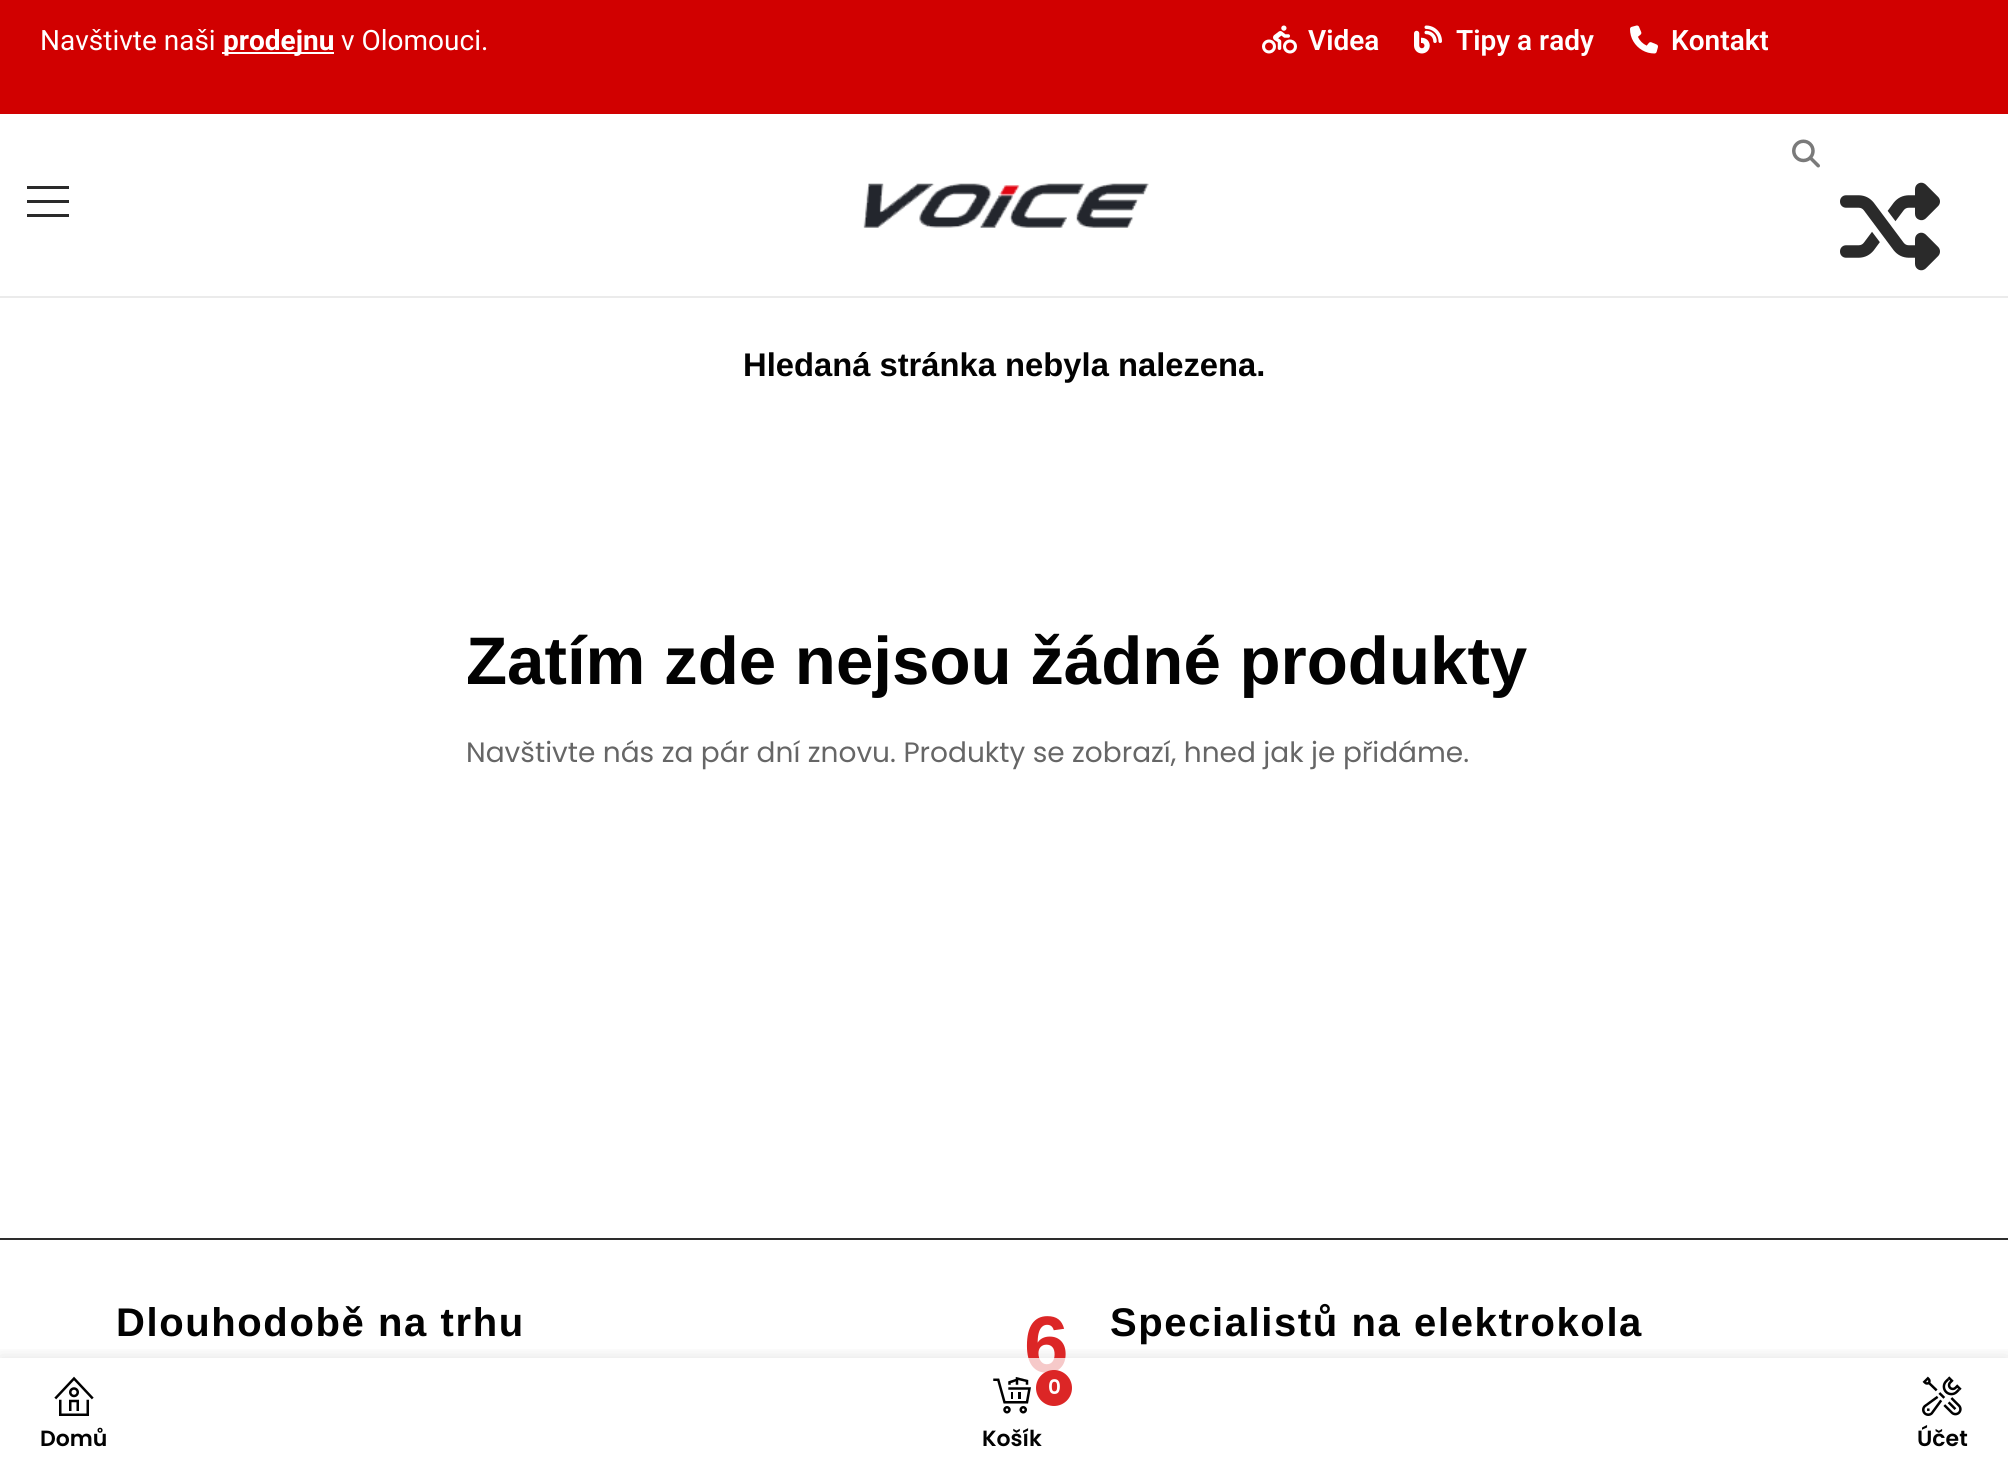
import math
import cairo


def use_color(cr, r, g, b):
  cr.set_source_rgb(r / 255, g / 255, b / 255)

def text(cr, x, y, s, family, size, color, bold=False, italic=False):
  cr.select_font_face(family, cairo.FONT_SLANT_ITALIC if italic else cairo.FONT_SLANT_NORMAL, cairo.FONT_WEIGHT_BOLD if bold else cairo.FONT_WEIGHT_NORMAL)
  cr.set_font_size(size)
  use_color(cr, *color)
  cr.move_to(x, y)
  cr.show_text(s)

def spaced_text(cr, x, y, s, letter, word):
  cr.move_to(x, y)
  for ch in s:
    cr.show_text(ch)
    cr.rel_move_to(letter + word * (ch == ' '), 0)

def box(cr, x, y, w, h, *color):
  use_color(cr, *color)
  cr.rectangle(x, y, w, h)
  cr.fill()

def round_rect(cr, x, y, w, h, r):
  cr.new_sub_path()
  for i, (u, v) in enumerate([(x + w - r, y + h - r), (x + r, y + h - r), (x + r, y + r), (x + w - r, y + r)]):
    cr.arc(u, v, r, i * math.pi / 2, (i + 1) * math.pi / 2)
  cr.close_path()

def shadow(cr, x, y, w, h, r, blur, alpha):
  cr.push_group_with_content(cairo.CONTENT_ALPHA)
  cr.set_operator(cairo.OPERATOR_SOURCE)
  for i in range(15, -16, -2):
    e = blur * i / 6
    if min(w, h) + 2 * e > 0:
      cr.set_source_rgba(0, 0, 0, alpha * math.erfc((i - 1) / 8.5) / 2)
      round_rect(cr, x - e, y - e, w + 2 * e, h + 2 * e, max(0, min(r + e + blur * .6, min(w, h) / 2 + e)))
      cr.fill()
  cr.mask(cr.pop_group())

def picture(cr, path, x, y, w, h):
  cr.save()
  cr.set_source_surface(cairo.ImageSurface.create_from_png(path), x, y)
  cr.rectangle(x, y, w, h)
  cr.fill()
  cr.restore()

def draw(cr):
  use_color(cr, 255, 255, 255)
  cr.paint()
  box(cr, 0, 296, 2008, 2, 235, 235, 235)
  box(cr, 0, 0, 2008, 114, 209, 0, 0)
  box(cr, 222, 52, 112, 2, 255, 255, 255)
  picture(cr, "img_01.png", 1262, 25, 35, 29)
  picture(cr, "img_02.png", 1414, 25, 28, 29)
  picture(cr, "img_03.png", 1630, 25, 28, 29)
  use_color(cr, 42, 42, 42)
  cr.new_path()
  cr.move_to(27, 186)
  cr.line_to(27, 189)
  cr.line_to(69, 189)
  cr.line_to(69, 186)
  cr.close_path()
  cr.move_to(27, 200)
  cr.line_to(27, 203)
  cr.line_to(69, 203)
  cr.line_to(69, 200)
  cr.close_path()
  cr.move_to(27, 214)
  cr.line_to(27, 217)
  cr.line_to(69, 217)
  cr.line_to(69, 214)
  cr.close_path()
  cr.fill()
  picture(cr, "img_04.png", 863, 183, 286, 45)
  picture(cr, "img_05.png", 1792, 139, 28, 29)
  picture(cr, "img_06.png", 1840, 182, 100, 89)
  box(cr, 0, 1238, 2008, 2, 45, 45, 45)
  cr.save()
  cr.rectangle(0, 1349, 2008, 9)
  cr.clip()
  use_color(cr, 0, 0, 0)
  shadow(cr, 0, 1358, 2008, 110, 0, 9, 0.12)
  cr.restore()
  picture(cr, "img_07.png", 54, 1376, 40, 40)
  picture(cr, "img_08.png", 993, 1377, 38, 37)
  picture(cr, "img_09.png", 1922, 1376, 40, 40)
  text(cr, 40, 50, "Navštivte naši", "Roboto", 28, (255, 255, 255))
  text(cr, 223, 50, "prodejnu", "Roboto", 28, (255, 255, 255), bold=True)
  text(cr, 341, 50, "v Olomouci.", "Roboto", 28, (255, 255, 255))
  text(cr, 1308, 50, "Videa", "Roboto SemiBold", 28, (255, 255, 255))
  text(cr, 1456, 50, "Tipy a rady", "Roboto SemiBold", 28, (255, 255, 255))
  text(cr, 1671, 50, "Kontakt", "Roboto SemiBold", 28, (255, 255, 255))
  text(cr, 743, 376, "Hledaná stránka nebyla nalezena.", "Liberation Sans", 32.75, (2, 2, 2), bold=True)
  text(cr, 466, 684, "Zatím zde nejsou žádné produkty", "Liberation Sans", 67.25, (2, 2, 2), bold=True)
  text(cr, 466, 762, "Navštivte nás za pár dní znovu. Produkty se zobrazí, hned jak je přidáme.", "Poppins", 28, (102, 102, 102))
  cr.select_font_face("Liberation Sans", cairo.FONT_SLANT_NORMAL, cairo.FONT_WEIGHT_BOLD)
  cr.set_font_size(40)
  use_color(cr, 2, 2, 2)
  spaced_text(cr, 116, 1336, "Dlouhodobě na trhu", 1.6, 0)
  cr.set_font_size(80)
  use_color(cr, 220, 38, 38)
  spaced_text(cr, 1024, 1372, "6", 1.6, 0)
  cr.set_font_size(40)
  use_color(cr, 2, 2, 2)
  spaced_text(cr, 1110, 1336, "Specialistů na elektrokola", 1.6, 0)
  cr.set_source_rgba(1, 1, 1, 0.75)
  cr.rectangle(1028, 1358, 38, 15)
  cr.fill()
  text(cr, 40, 1446, "Domů", "Poppins SemiBold", 22, (2, 2, 2))
  use_color(cr, 220, 38, 38)
  cr.new_path()
  cr.arc(1054, 1388, 18, 0, 2 * math.pi)
  cr.fill()
  text(cr, 1048, 1394, "0", "Poppins SemiBold", 20, (255, 255, 255))
  text(cr, 982, 1446, "Košík", "Poppins SemiBold", 22, (2, 2, 2))
  text(cr, 1917, 1446, "Účet", "Poppins SemiBold", 22, (2, 2, 2))


surface = cairo.ImageSurface(cairo.FORMAT_RGB24, 2008, 1467)
cr = cairo.Context(surface)
options = cairo.FontOptions()
options.set_hint_metrics(cairo.HINT_METRICS_OFF)
options.set_hint_style(cairo.HINT_STYLE_NONE)
cr.set_font_options(options)
cr.set_miter_limit(4)
draw(cr)
surface.write_to_png("out.png")
